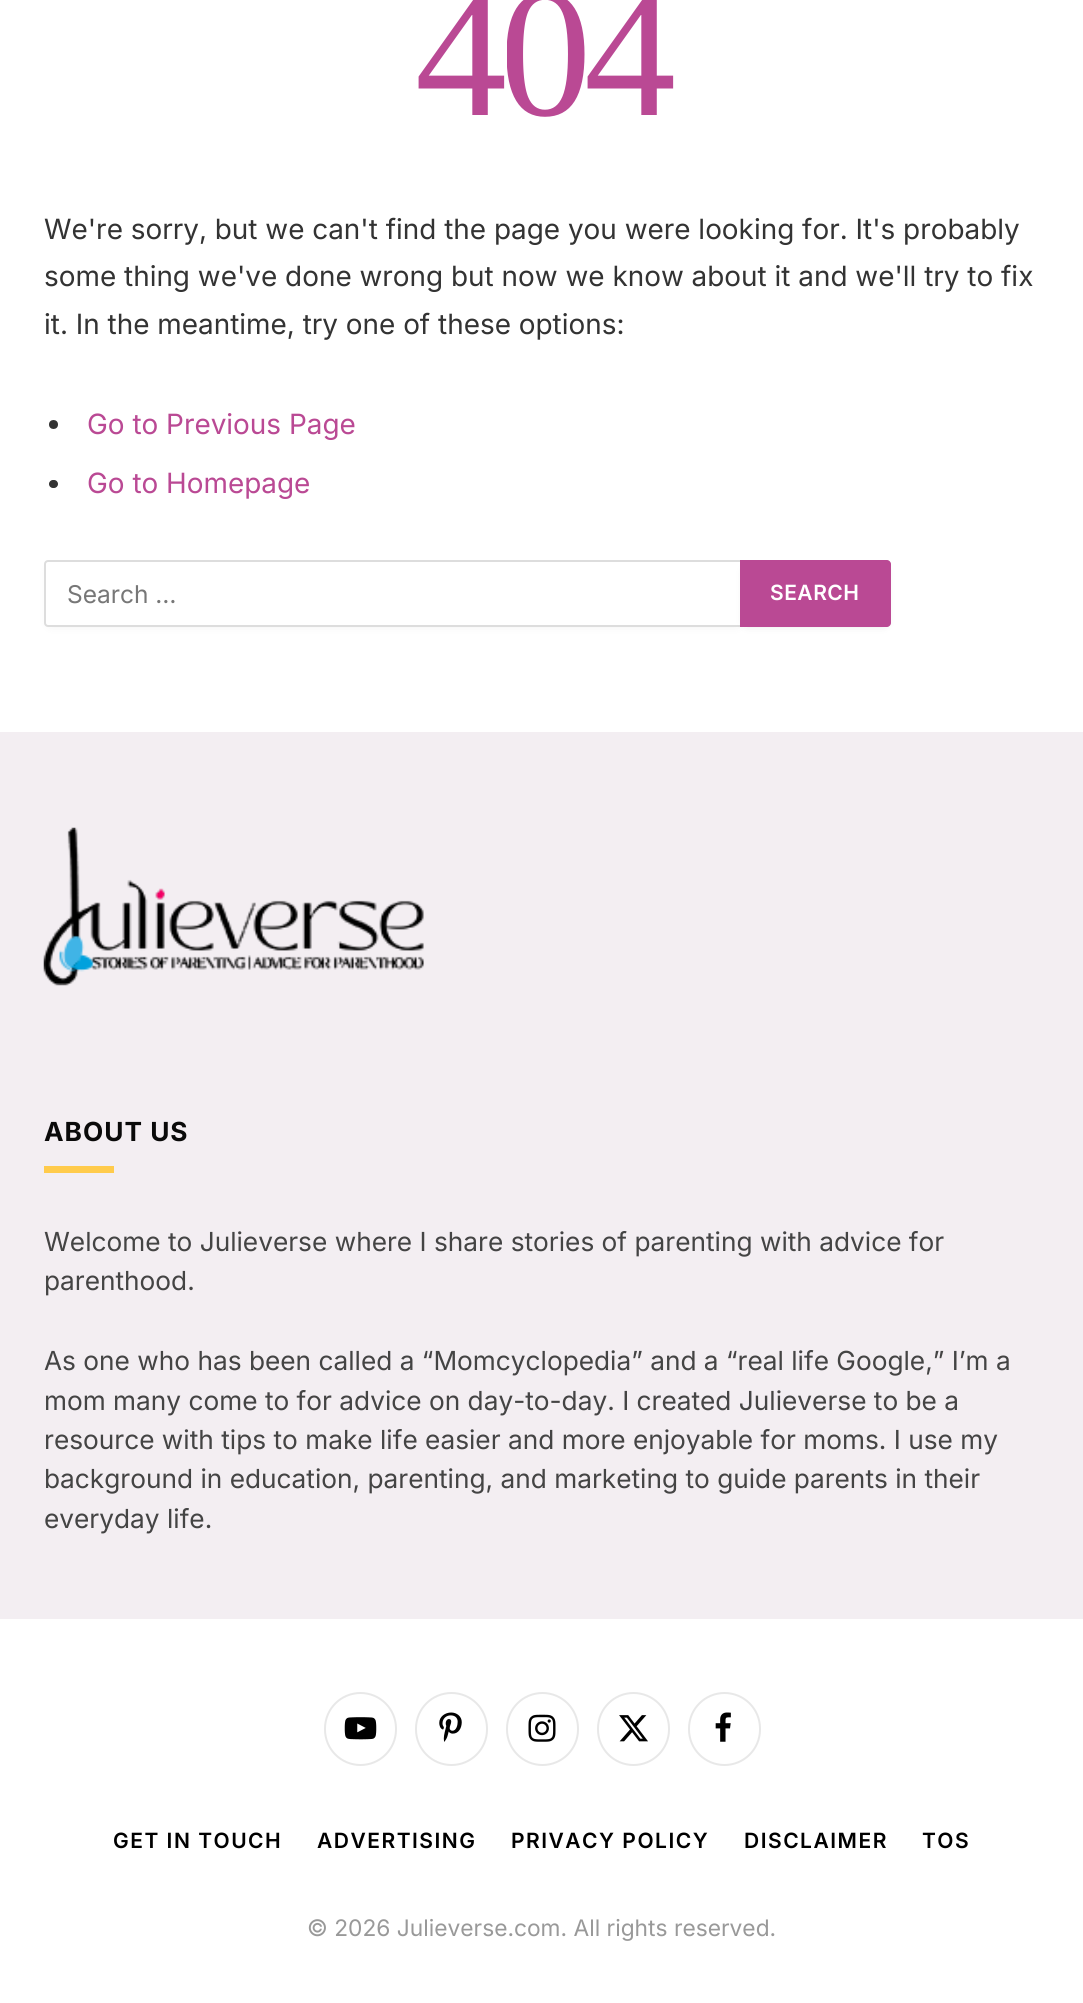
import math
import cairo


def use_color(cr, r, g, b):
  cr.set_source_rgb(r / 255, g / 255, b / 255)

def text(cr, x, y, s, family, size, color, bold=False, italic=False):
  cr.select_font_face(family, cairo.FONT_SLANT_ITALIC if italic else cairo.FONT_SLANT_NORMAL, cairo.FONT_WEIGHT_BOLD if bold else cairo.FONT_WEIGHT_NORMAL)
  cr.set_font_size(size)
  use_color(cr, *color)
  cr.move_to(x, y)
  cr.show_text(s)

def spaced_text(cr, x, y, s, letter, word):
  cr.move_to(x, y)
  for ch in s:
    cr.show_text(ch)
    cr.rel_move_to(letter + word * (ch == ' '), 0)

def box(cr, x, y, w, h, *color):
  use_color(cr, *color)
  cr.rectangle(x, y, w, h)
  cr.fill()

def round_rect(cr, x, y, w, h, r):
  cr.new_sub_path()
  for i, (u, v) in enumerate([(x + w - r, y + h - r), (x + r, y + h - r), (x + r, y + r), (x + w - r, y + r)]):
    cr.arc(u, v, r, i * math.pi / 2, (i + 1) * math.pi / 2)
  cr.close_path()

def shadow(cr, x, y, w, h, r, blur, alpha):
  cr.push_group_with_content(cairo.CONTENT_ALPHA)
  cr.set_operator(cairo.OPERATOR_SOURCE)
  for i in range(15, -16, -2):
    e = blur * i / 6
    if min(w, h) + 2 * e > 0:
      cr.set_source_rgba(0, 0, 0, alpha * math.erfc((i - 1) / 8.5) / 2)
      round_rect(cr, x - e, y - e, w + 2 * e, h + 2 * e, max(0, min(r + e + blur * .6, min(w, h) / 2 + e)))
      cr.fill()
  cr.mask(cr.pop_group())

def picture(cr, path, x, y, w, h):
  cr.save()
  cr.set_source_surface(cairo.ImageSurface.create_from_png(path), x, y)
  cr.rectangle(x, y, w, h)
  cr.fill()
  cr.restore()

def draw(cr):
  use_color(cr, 255, 255, 255)
  cr.paint()
  use_color(cr, 51, 51, 51)
  cr.arc(53.5, 424.5, 4.5, 0, 2 * math.pi)
  cr.fill()
  round_rect(cr, 49, 480, 9, 8, 4)
  cr.fill()
  use_color(cr, 0, 0, 0)
  shadow(cr, 51, 571, 686, 52, 0, 6, 0.1)
  use_color(cr, 255, 255, 255)
  round_rect(cr, 45, 561, 698, 65, 3)
  cr.fill_preserve()
  use_color(cr, 221, 221, 221)
  cr.stroke()
  use_color(cr, 0, 0, 0)
  shadow(cr, 747, 571, 137, 52, 0, 6, 0.16)
  use_color(cr, 186, 73, 148)
  cr.new_path()
  cr.move_to(740, 560)
  cr.line_to(887, 560)
  cr.curve_to(889, 560, 891, 562, 891, 564)
  cr.line_to(891, 623)
  cr.curve_to(891, 625, 889, 627, 887, 627)
  cr.line_to(740, 627)
  cr.close_path()
  cr.fill()
  box(cr, 0, 732, 1083, 887, 243, 238, 242)
  picture(cr, "img_01.png", 43, 827, 381, 159)
  box(cr, 44, 1166, 70, 7, 255, 203, 76)
  round_rect(cr, 325, 1693, 71, 72, 35.5)
  use_color(cr, 232, 232, 232)
  cr.stroke()
  picture(cr, "img_02.png", 344, 1717, 33, 23)
  round_rect(cr, 416, 1693, 71, 72, 35.5)
  cr.stroke()
  picture(cr, "img_03.png", 439, 1712, 23, 30)
  round_rect(cr, 507, 1693, 71, 72, 35.5)
  cr.stroke()
  picture(cr, "img_04.png", 528, 1714, 28, 28)
  round_rect(cr, 598, 1693, 71, 72, 35.5)
  cr.stroke()
  picture(cr, "img_05.png", 619, 1715, 29, 27)
  round_rect(cr, 689, 1693, 71, 72, 35.5)
  cr.stroke()
  picture(cr, "img_06.png", 715, 1712, 16, 30)
  cr.select_font_face("Liberation Serif")
  cr.set_font_size(184)
  use_color(cr, 186, 73, 148)
  spaced_text(cr, 415, 115, "404", -7.5, 0)
  text(cr, 44, 239, "We're sorry, but we can't find the page you were looking for. It's probably", "Inter", 27.9, (51, 51, 51))
  text(cr, 44, 286, "some thing we've done wrong but now we know about it and we'll try to fix", "Inter", 27.9, (51, 51, 51))
  text(cr, 44, 334, "it. In the meantime, try one of these options:", "Inter", 27.9, (51, 51, 51))
  text(cr, 87, 434, "Go to Previous Page", "Inter", 27.9, (186, 73, 148))
  text(cr, 87, 493, "Go to Homepage", "Inter", 27.9, (186, 73, 148))
  text(cr, 67, 603, "Search …", "Inter", 24.5, (119, 119, 119))
  cr.select_font_face("Inter SemiBold")
  cr.set_font_size(21)
  use_color(cr, 255, 255, 255)
  spaced_text(cr, 770, 600, "SEARCH", 0.5, 0)
  cr.select_font_face("Inter", cairo.FONT_SLANT_NORMAL, cairo.FONT_WEIGHT_BOLD)
  cr.set_font_size(26.25)
  use_color(cr, 10, 10, 10)
  spaced_text(cr, 44, 1141, "ABOUT US", 1, 0)
  text(cr, 44, 1251, "Welcome to Julieverse where I share stories of parenting with advice for", "Inter", 26.25, (68, 68, 68))
  text(cr, 44, 1290, "parenthood.", "Inter", 26.25, (68, 68, 68))
  text(cr, 44, 1370, "As one who has been called a “Momcyclopedia” and a “real life Google,” I’m a", "Inter", 26.25, (68, 68, 68))
  text(cr, 44, 1410, "mom many come to for advice on day-to-day. I created Julieverse to be a", "Inter", 26.25, (68, 68, 68))
  text(cr, 44, 1449, "resource with tips to make life easier and more enjoyable for moms. I use my", "Inter", 26.25, (68, 68, 68))
  text(cr, 44, 1488, "background in education, parenting, and marketing to guide parents in their", "Inter", 26.25, (68, 68, 68))
  text(cr, 44, 1528, "everyday life.", "Inter", 26.25, (68, 68, 68))
  cr.select_font_face("Inter SemiBold")
  cr.set_font_size(21)
  use_color(cr, 0, 0, 0)
  spaced_text(cr, 113, 1848, "GET IN TOUCH", 1.5, 0)
  spaced_text(cr, 317, 1848, "ADVERTISING", 1.5, 0)
  spaced_text(cr, 511, 1848, "PRIVACY POLICY", 1.5, 0)
  spaced_text(cr, 744, 1848, "DISCLAIMER", 1.5, 0)
  spaced_text(cr, 922, 1848, "TOS", 1.5, 0)
  text(cr, 307, 1936, "© 2026 Julieverse.com. All rights reserved.", "Inter", 22.75, (153, 153, 153))


surface = cairo.ImageSurface(cairo.FORMAT_RGB24, 1083, 2003)
cr = cairo.Context(surface)
options = cairo.FontOptions()
options.set_hint_metrics(cairo.HINT_METRICS_OFF)
options.set_hint_style(cairo.HINT_STYLE_NONE)
cr.set_font_options(options)
cr.set_miter_limit(4)
draw(cr)
surface.write_to_png("out.png")
